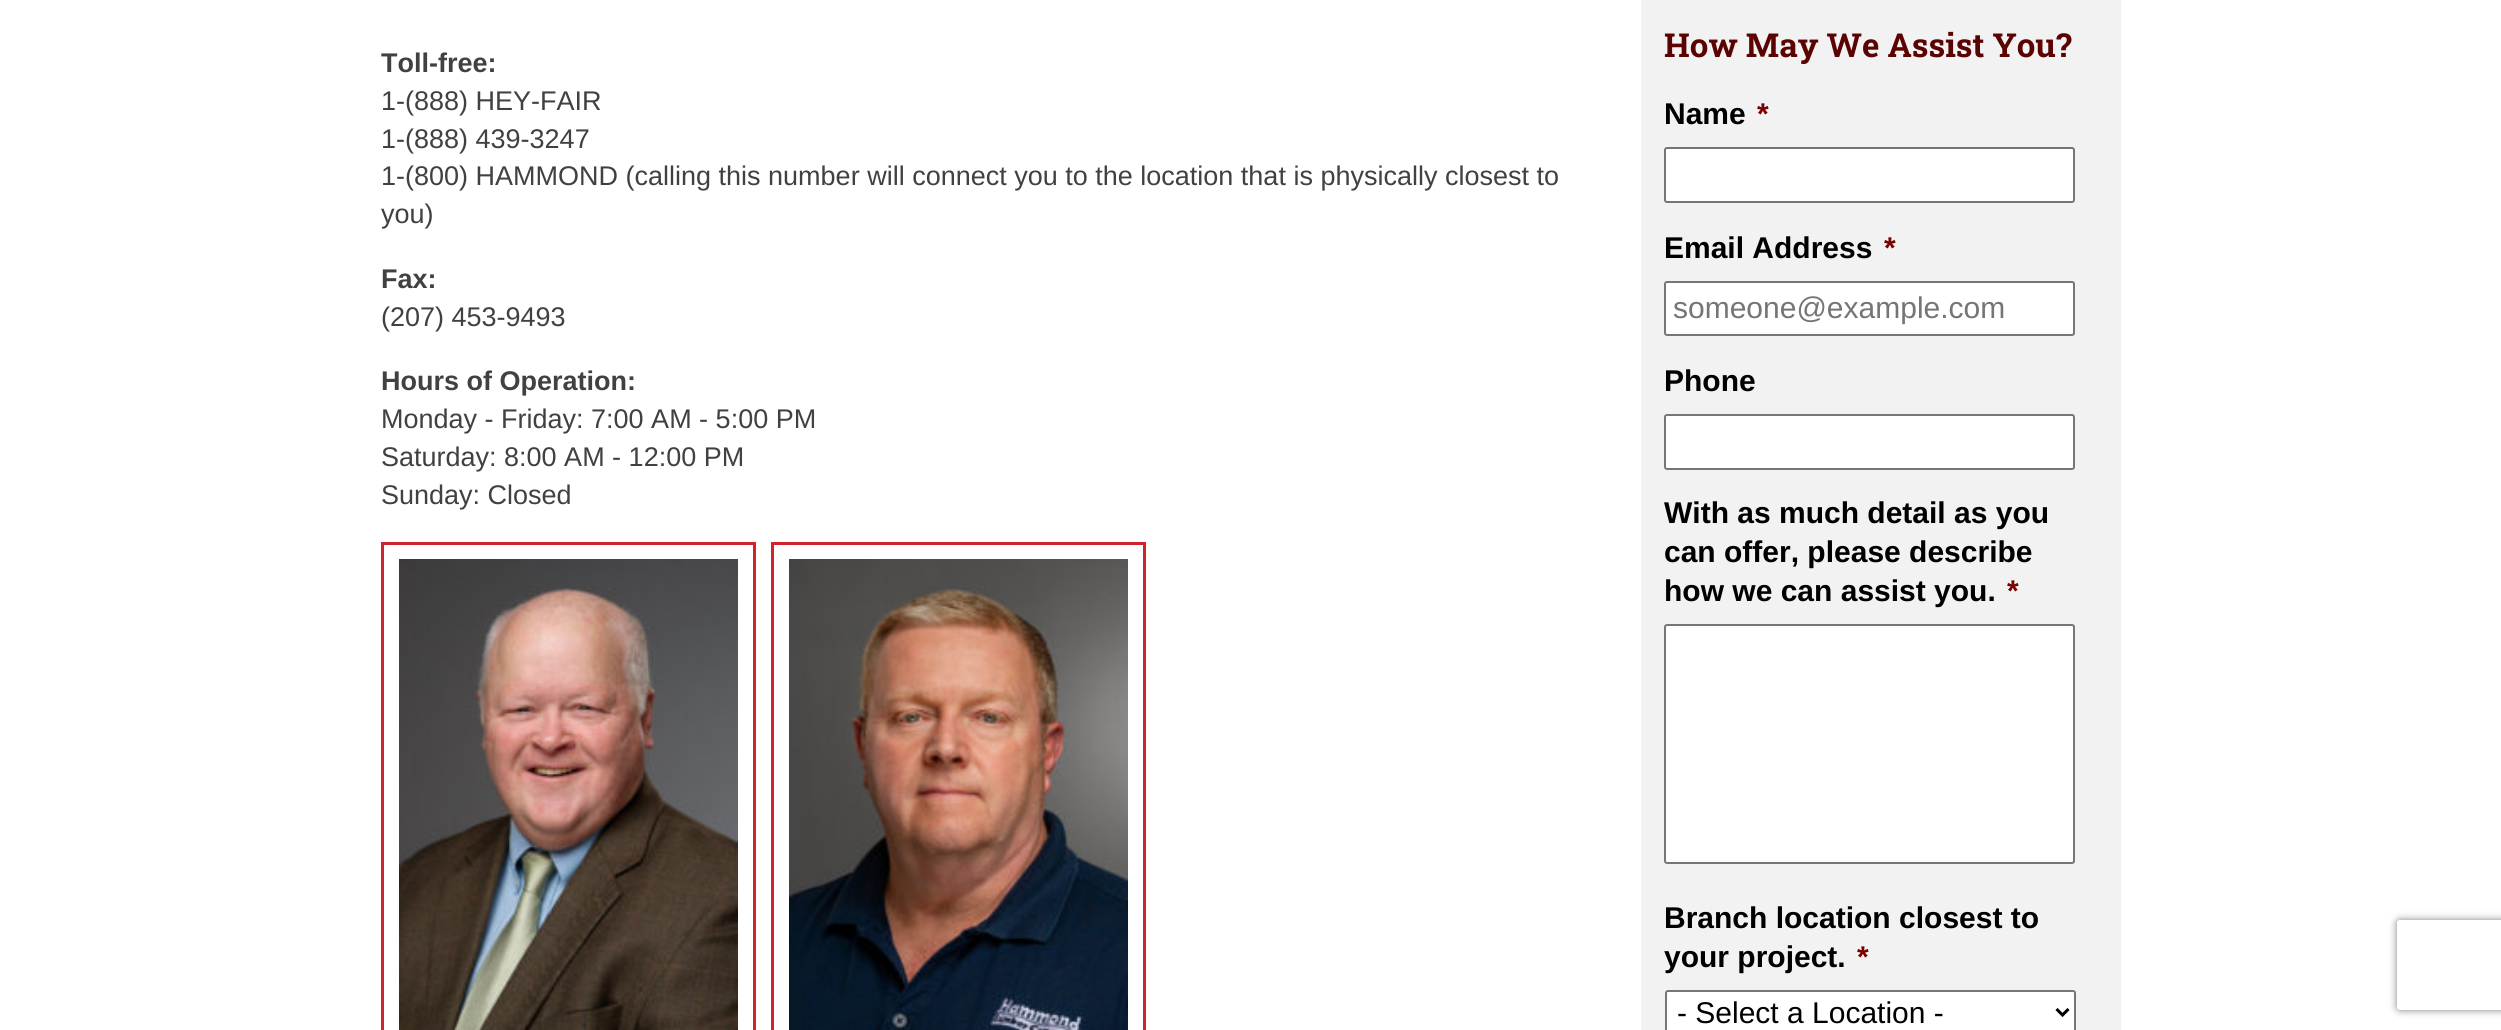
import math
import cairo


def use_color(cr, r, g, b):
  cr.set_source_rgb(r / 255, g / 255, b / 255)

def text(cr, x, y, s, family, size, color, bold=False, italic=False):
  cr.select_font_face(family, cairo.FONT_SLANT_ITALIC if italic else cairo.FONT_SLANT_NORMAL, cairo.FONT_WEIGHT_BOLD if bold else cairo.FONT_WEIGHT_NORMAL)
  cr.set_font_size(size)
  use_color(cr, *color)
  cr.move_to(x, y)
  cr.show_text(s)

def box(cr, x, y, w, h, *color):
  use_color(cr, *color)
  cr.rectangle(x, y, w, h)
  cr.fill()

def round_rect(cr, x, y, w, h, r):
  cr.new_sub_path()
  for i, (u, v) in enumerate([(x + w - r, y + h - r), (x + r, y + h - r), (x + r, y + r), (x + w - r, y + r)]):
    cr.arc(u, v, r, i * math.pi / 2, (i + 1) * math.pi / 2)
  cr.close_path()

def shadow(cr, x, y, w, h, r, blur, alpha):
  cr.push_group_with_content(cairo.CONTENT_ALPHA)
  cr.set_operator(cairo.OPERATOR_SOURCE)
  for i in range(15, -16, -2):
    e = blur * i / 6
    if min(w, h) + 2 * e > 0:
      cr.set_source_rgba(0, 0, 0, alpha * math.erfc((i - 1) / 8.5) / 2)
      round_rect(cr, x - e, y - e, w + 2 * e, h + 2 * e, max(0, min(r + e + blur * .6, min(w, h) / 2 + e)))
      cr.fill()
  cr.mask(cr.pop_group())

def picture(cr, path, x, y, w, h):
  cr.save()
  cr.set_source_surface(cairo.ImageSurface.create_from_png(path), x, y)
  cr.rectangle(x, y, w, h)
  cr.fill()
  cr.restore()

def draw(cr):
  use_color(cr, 255, 255, 255)
  cr.paint()
  cr.rectangle(382.5, 543.5, 372, 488)
  use_color(cr, 209, 35, 42)
  cr.set_line_width(3)
  cr.stroke()
  picture(cr, "img_01.png", 399, 559, 339, 471)
  cr.rectangle(772.5, 543.5, 372, 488)
  cr.stroke()
  picture(cr, "img_02.png", 789, 559, 339, 471)
  box(cr, 1641, 0, 480, 1030, 242, 242, 242)
  use_color(cr, 255, 255, 255)
  round_rect(cr, 1665, 148, 409, 54, 2)
  cr.fill_preserve()
  use_color(cr, 118, 118, 118)
  cr.set_line_width(2)
  cr.stroke()
  use_color(cr, 255, 255, 255)
  round_rect(cr, 1665, 282, 409, 53, 2)
  cr.fill_preserve()
  use_color(cr, 118, 118, 118)
  cr.stroke()
  use_color(cr, 255, 255, 255)
  round_rect(cr, 1665, 415, 409, 54, 2)
  cr.fill_preserve()
  use_color(cr, 118, 118, 118)
  cr.stroke()
  use_color(cr, 255, 255, 255)
  round_rect(cr, 1665, 625, 409, 238, 2)
  cr.fill_preserve()
  use_color(cr, 118, 118, 118)
  cr.stroke()
  use_color(cr, 255, 255, 255)
  round_rect(cr, 1666, 991, 409, 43, 2)
  cr.fill_preserve()
  use_color(cr, 118, 118, 118)
  cr.stroke()
  cr.new_path()
  cr.move_to(2056.5, 1009)
  cr.line_to(2062.5, 1015)
  cr.line_to(2068.5, 1009)
  use_color(cr, 0, 0, 0)
  cr.set_line_width(3)
  cr.stroke()
  cr.save()
  cr.set_fill_rule(cairo.FILL_RULE_EVEN_ODD)
  cr.new_path()
  cr.move_to(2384, 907)
  cr.line_to(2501, 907)
  cr.line_to(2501, 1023)
  cr.line_to(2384, 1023)
  cr.close_path()
  cr.move_to(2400, 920)
  cr.line_to(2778, 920)
  cr.curve_to(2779.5, 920, 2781, 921.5, 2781, 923)
  cr.line_to(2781, 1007)
  cr.curve_to(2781, 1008.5, 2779.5, 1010, 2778, 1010)
  cr.line_to(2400, 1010)
  cr.curve_to(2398.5, 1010, 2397, 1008.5, 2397, 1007)
  cr.line_to(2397, 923)
  cr.curve_to(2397, 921.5, 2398.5, 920, 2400, 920)
  cr.close_path()
  cr.clip()
  use_color(cr, 128, 128, 128)
  shadow(cr, 2397, 920, 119, 90, 3, 4, 1)
  cr.restore()
  text(cr, 381, 72, "Toll-free:", "Liberation Sans", 27, (65, 65, 65), bold=True)
  text(cr, 381, 110, "1-(888) HEY-FAIR", "Liberation Sans", 27, (65, 65, 65))
  text(cr, 381, 148, "1-(888) 439-3247", "Liberation Sans", 27, (65, 65, 65))
  text(cr, 381, 185, "1-(800) HAMMOND (calling this number will connect you to the location that is physically closest to", "Liberation Sans", 27, (65, 65, 65))
  text(cr, 381, 223, "you)", "Liberation Sans", 27, (65, 65, 65))
  text(cr, 381, 288, "Fax:", "Liberation Sans", 27, (65, 65, 65), bold=True)
  text(cr, 381, 326, "(207) 453-9493", "Liberation Sans", 27, (65, 65, 65))
  text(cr, 381, 390, "Hours of Operation:", "Liberation Sans", 27, (65, 65, 65), bold=True)
  text(cr, 381, 428, "Monday - Friday: 7:00 AM - 5:00 PM", "Liberation Sans", 27, (65, 65, 65))
  text(cr, 381, 466, "Saturday: 8:00 AM - 12:00 PM", "Liberation Sans", 27, (65, 65, 65))
  text(cr, 381, 504, "Sunday: Closed", "Liberation Sans", 27, (65, 65, 65))
  text(cr, 1664, 57, "How May We Assist You?", "Roboto Slab", 33, (91, 2, 2), bold=True)
  text(cr, 1664, 124, "Name", "Liberation Sans", 30, (0, 0, 0), bold=True)
  text(cr, 1757, 124, "*", "Liberation Sans", 30, (121, 0, 0), bold=True)
  text(cr, 1664, 258, "Email Address", "Liberation Sans", 30, (0, 0, 0), bold=True)
  text(cr, 1884, 258, "*", "Liberation Sans", 30, (121, 0, 0), bold=True)
  text(cr, 1673, 318, "someone@example.com", "Liberation Sans", 30, (117, 117, 117))
  text(cr, 1664, 391, "Phone", "Liberation Sans", 30, (0, 0, 0), bold=True)
  text(cr, 1664, 523, "With as much detail as you", "Liberation Sans", 30, (0, 0, 0), bold=True)
  text(cr, 1664, 562, "can offer, please describe", "Liberation Sans", 30, (0, 0, 0), bold=True)
  text(cr, 1664, 601, "how we can assist you.", "Liberation Sans", 30, (0, 0, 0), bold=True)
  text(cr, 2007, 601, "*", "Liberation Sans", 30, (121, 0, 0), bold=True)
  text(cr, 1664, 928, "Branch location closest to", "Liberation Sans", 30, (0, 0, 0), bold=True)
  text(cr, 1664, 967, "your project.", "Liberation Sans", 30, (0, 0, 0), bold=True)
  text(cr, 1857, 967, "*", "Liberation Sans", 30, (121, 0, 0), bold=True)
  text(cr, 1677, 1023, "- Select a Location -", "Liberation Sans", 30, (0, 0, 0))


surface = cairo.ImageSurface(cairo.FORMAT_RGB24, 2501, 1030)
cr = cairo.Context(surface)
options = cairo.FontOptions()
options.set_hint_metrics(cairo.HINT_METRICS_OFF)
options.set_hint_style(cairo.HINT_STYLE_NONE)
cr.set_font_options(options)
cr.set_miter_limit(4)
draw(cr)
surface.write_to_png("out.png")
